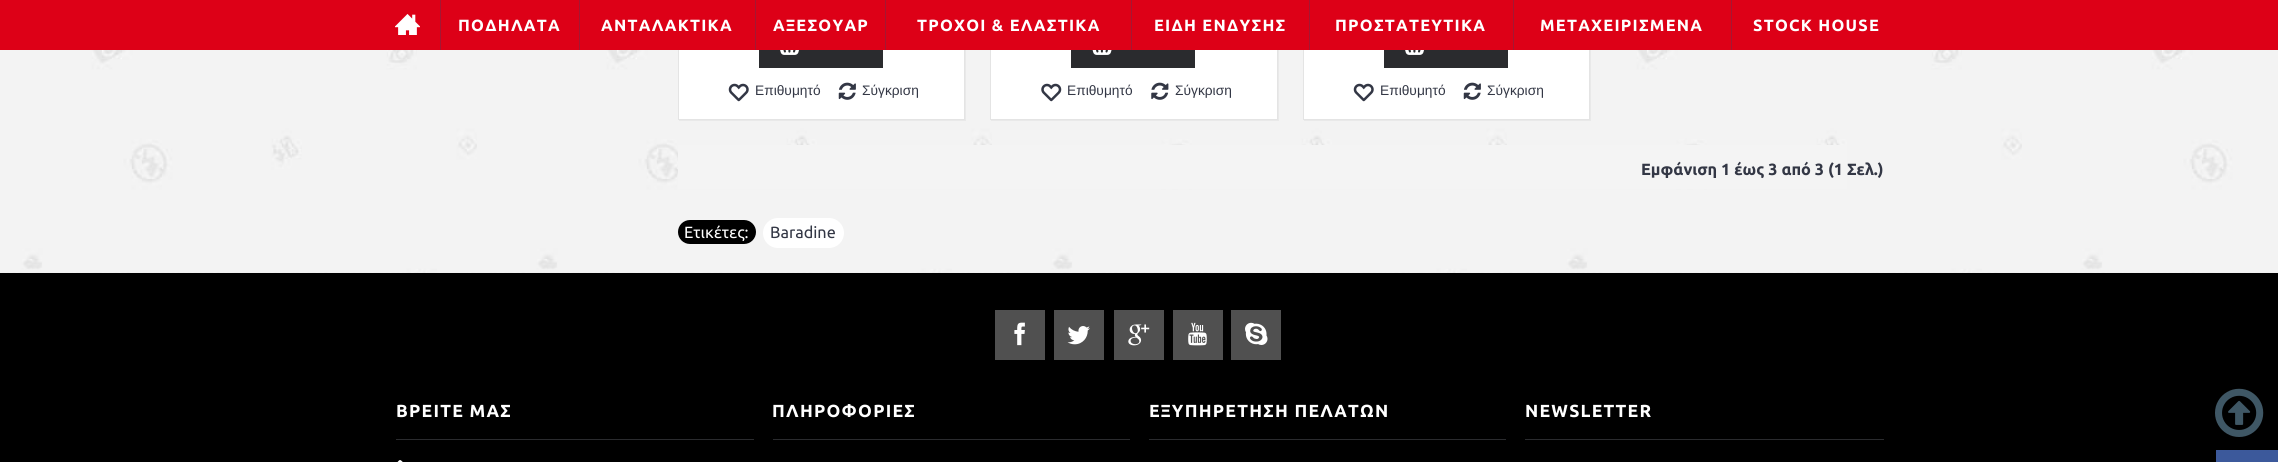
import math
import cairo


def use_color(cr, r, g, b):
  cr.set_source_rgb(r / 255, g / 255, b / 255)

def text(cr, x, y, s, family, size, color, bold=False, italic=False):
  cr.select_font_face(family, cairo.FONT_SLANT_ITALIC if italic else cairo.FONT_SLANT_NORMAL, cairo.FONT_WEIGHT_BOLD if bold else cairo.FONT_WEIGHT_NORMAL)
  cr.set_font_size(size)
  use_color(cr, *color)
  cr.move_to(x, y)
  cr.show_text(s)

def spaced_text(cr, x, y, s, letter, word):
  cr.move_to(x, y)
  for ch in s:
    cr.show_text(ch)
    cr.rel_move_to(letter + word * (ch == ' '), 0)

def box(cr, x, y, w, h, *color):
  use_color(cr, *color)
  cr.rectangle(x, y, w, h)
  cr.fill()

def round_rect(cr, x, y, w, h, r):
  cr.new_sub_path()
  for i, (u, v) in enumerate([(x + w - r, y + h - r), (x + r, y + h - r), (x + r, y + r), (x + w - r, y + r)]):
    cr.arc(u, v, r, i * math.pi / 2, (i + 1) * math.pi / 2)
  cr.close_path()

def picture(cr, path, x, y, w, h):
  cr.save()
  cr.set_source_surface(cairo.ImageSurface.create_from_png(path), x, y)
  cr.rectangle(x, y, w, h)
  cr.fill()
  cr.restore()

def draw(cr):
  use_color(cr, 255, 255, 255)
  cr.paint()
  picture(cr, "img_01.png", 0, 272, 2278, 1)
  picture(cr, "img_03.png", 0, 50, 2278, 223)
  use_color(cr, 233, 233, 233)
  cr.new_path()
  cr.move_to(679, 120)
  cr.line_to(679, 121)
  cr.line_to(966, 121)
  cr.line_to(966, -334)
  cr.line_to(965, -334)
  cr.line_to(965, 120)
  cr.close_path()
  cr.fill()
  box(cr, 679, 50, 285, 69, 255, 255, 255)
  cr.rectangle(678.5, -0.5, 286, 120)
  use_color(cr, 228, 228, 228)
  cr.set_line_width(1)
  cr.stroke()
  use_color(cr, 233, 233, 233)
  cr.new_path()
  cr.move_to(991, 120)
  cr.line_to(991, 121)
  cr.line_to(1279, 121)
  cr.line_to(1279, -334)
  cr.line_to(1278, -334)
  cr.line_to(1278, 120)
  cr.close_path()
  cr.fill()
  box(cr, 991, 50, 286, 69, 255, 255, 255)
  cr.rectangle(990.5, -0.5, 287, 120)
  use_color(cr, 228, 228, 228)
  cr.stroke()
  use_color(cr, 233, 233, 233)
  cr.new_path()
  cr.move_to(1304, 120)
  cr.line_to(1304, 121)
  cr.line_to(1591, 121)
  cr.line_to(1591, -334)
  cr.line_to(1590, -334)
  cr.line_to(1590, 120)
  cr.close_path()
  cr.fill()
  box(cr, 1304, 50, 285, 69, 255, 255, 255)
  cr.rectangle(1303.5, -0.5, 286, 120)
  use_color(cr, 228, 228, 228)
  cr.stroke()
  box(cr, 0, 0, 2278, 50, 221, 0, 23)
  picture(cr, "img_02.png", 395, 14, 25, 21)
  box(cr, 440, 0, 1, 50, 164, 23, 51)
  box(cr, 579, 0, 1, 50, 164, 23, 51)
  box(cr, 755, 0, 1, 50, 164, 23, 51)
  box(cr, 885, 0, 1, 50, 164, 23, 51)
  box(cr, 1131, 0, 1, 50, 164, 23, 51)
  box(cr, 1309, 0, 1, 50, 164, 23, 51)
  box(cr, 1513, 0, 1, 50, 164, 23, 51)
  box(cr, 1731, 0, 1, 50, 164, 23, 51)
  box(cr, 759, 50, 124, 18, 42, 43, 46)
  picture(cr, "img_04.png", 780, 50, 19, 5)
  picture(cr, "img_05.png", 728, 83, 21, 19)
  picture(cr, "img_06.png", 838, 82, 18, 18)
  box(cr, 1071, 50, 124, 18, 42, 43, 46)
  picture(cr, "img_07.png", 1092, 50, 20, 5)
  picture(cr, "img_08.png", 1041, 83, 21, 19)
  picture(cr, "img_09.png", 1151, 82, 18, 18)
  box(cr, 1384, 50, 124, 18, 42, 43, 46)
  picture(cr, "img_04.png", 1405, 50, 19, 5)
  picture(cr, "img_05.png", 1353, 83, 21, 19)
  picture(cr, "img_06.png", 1463, 82, 18, 18)
  box(cr, 678, 145, 1169, 44, 244, 244, 244)
  use_color(cr, 0, 0, 0)
  round_rect(cr, 678, 220, 78, 24, 12)
  cr.fill()
  use_color(cr, 255, 255, 255)
  round_rect(cr, 763, 218, 81, 30, 15)
  cr.fill()
  box(cr, 0, 273, 2278, 189, 0, 0, 0)
  box(cr, 995, 310, 50, 50, 80, 80, 80)
  picture(cr, "img_10.png", 1014, 322, 11, 24)
  box(cr, 1054, 310, 50, 50, 80, 80, 80)
  picture(cr, "img_11.png", 1067, 326, 23, 19)
  box(cr, 1114, 310, 50, 50, 80, 80, 80)
  picture(cr, "img_12.png", 1128, 324, 22, 22)
  box(cr, 1173, 310, 50, 50, 80, 80, 80)
  picture(cr, "img_13.png", 1188, 322, 19, 24)
  box(cr, 1231, 310, 50, 50, 80, 80, 80)
  picture(cr, "img_14.png", 1245, 322, 23, 23)
  box(cr, 396, 439, 358, 1, 42, 43, 46)
  picture(cr, "img_15.png", 397, 460, 6, 2)
  box(cr, 773, 439, 357, 1, 42, 43, 46)
  box(cr, 1149, 439, 357, 1, 42, 43, 46)
  box(cr, 1525, 439, 359, 1, 42, 43, 46)
  picture(cr, "img_16.png", 2215, 388, 49, 49)
  box(cr, 2216, 450, 62, 12, 60, 89, 155)
  cr.select_font_face("Ubuntu", cairo.FONT_SLANT_NORMAL, cairo.FONT_WEIGHT_BOLD)
  cr.set_font_size(16.25)
  use_color(cr, 255, 255, 255)
  spaced_text(cr, 458, 31, "ΠΟΔΗΛΑΤΑ", 1.25, 0)
  spaced_text(cr, 601, 31, "ΑΝΤΑΛΑΚΤΙΚΑ", 1.25, 0)
  spaced_text(cr, 773, 31, "ΑΞΕΣΟΥΑΡ", 1.25, 0)
  spaced_text(cr, 917, 31, "ΤΡΟΧΟΙ & ΕΛΑΣΤΙΚΑ", 1.25, 0)
  spaced_text(cr, 1154, 31, "ΕΙΔΗ ΕΝΔΥΣΗΣ", 1.25, 0)
  spaced_text(cr, 1335, 31, "ΠΡΟΣΤΑΤΕΥΤΙΚΑ", 1.25, 0)
  spaced_text(cr, 1540, 31, "ΜΕΤΑΧΕΙΡΙΣΜΕΝΑ", 1.25, 0)
  spaced_text(cr, 1753, 31, "STOCK HOUSE", 1.25, 0)
  text(cr, 755, 95, "Επιθυμητό", "Liberation Sans", 13.75, (51, 55, 69))
  text(cr, 862, 95, "Σύγκριση", "Liberation Sans", 13.75, (51, 55, 69))
  text(cr, 1067, 95, "Επιθυμητό", "Liberation Sans", 13.75, (51, 55, 69))
  text(cr, 1175, 95, "Σύγκριση", "Liberation Sans", 13.75, (51, 55, 69))
  text(cr, 1380, 95, "Επιθυμητό", "Liberation Sans", 13.75, (51, 55, 69))
  text(cr, 1487, 95, "Σύγκριση", "Liberation Sans", 13.75, (51, 55, 69))
  text(cr, 1641, 175, "Εμφάνιση 1 έως 3 από 3 (1 Σελ.)", "Ubuntu", 16.25, (51, 55, 69), bold=True)
  text(cr, 684, 238, "Ετικέτες:", "Ubuntu", 16.25, (255, 255, 255))
  text(cr, 770, 238, "Baradine", "Ubuntu", 16.25, (51, 55, 69))
  cr.select_font_face("Ubuntu", cairo.FONT_SLANT_NORMAL, cairo.FONT_WEIGHT_BOLD)
  cr.set_font_size(17.5)
  use_color(cr, 255, 255, 255)
  spaced_text(cr, 396, 417, "ΒΡΕΙΤΕ ΜΑΣ", 1.25, 0)
  spaced_text(cr, 772, 417, "ΠΛΗΡΟΦΟΡΙΕΣ", 1.25, 0)
  spaced_text(cr, 1149, 417, "ΕΞΥΠΗΡΕΤΗΣΗ ΠΕΛΑΤΩΝ", 1.25, 0)
  spaced_text(cr, 1525, 417, "NEWSLETTER", 1.25, 0)


surface = cairo.ImageSurface(cairo.FORMAT_RGB24, 2278, 462)
cr = cairo.Context(surface)
options = cairo.FontOptions()
options.set_hint_metrics(cairo.HINT_METRICS_OFF)
options.set_hint_style(cairo.HINT_STYLE_NONE)
cr.set_font_options(options)
cr.set_miter_limit(4)
draw(cr)
surface.write_to_png("out.png")
